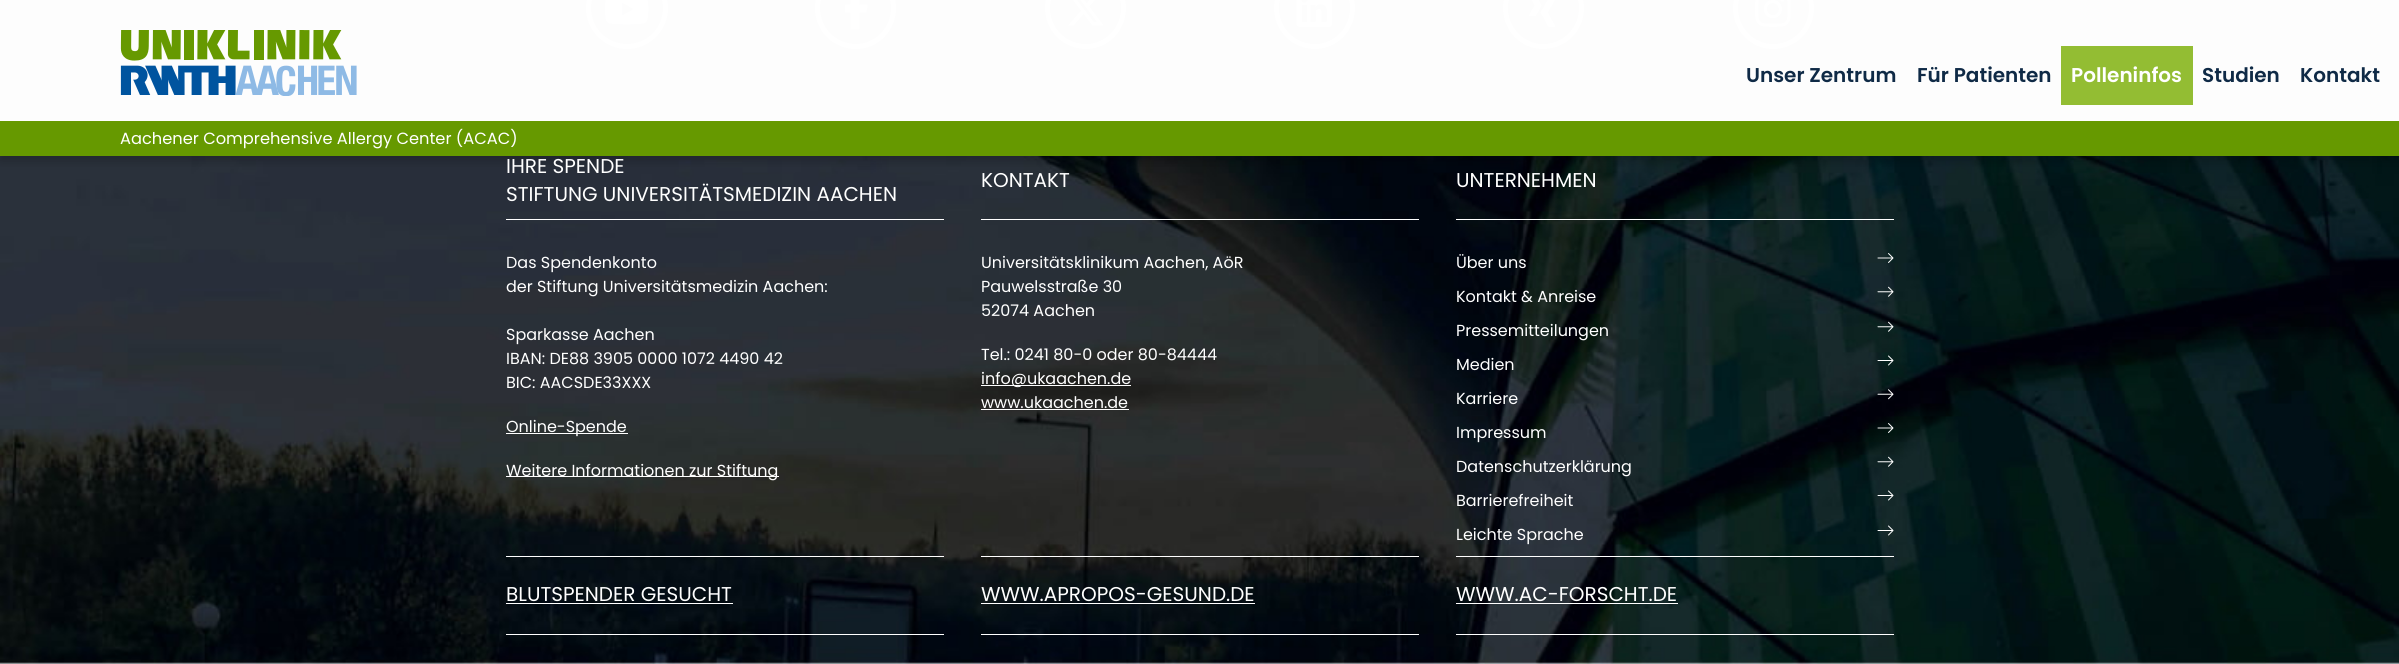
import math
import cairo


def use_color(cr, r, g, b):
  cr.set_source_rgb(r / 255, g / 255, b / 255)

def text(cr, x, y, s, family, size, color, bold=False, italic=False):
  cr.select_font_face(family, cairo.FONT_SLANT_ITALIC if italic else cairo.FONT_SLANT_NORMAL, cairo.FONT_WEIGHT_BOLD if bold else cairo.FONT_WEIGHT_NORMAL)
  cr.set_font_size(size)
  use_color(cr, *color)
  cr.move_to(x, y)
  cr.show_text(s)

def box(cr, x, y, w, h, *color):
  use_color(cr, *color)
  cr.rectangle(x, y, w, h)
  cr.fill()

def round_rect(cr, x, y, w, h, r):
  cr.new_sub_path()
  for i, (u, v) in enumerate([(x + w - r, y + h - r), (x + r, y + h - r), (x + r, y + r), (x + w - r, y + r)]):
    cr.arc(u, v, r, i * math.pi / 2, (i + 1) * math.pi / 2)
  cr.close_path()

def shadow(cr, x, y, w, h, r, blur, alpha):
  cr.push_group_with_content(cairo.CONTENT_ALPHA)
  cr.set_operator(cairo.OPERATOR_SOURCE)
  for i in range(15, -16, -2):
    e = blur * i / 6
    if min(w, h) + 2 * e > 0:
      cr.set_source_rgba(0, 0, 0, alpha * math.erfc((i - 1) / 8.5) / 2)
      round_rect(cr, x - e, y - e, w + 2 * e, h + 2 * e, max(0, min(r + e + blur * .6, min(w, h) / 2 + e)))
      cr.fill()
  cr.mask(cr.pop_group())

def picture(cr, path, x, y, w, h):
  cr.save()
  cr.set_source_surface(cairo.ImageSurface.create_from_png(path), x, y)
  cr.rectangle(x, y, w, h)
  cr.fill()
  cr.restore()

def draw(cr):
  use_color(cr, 255, 255, 255)
  cr.paint()
  picture(cr, "img_02.png", 0, 0, 2399, 664)
  use_color(cr, 255, 255, 255)
  cr.new_path()
  cr.move_to(627, -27)
  cr.curve_to(647, -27, 663, -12, 663, 8)
  cr.curve_to(663, 28, 647, 44, 627, 44)
  cr.curve_to(607, 44, 591, 28, 591, 8)
  cr.curve_to(591, -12, 607, -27, 627, -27)
  cr.close_path()
  cr.move_to(627, 49)
  cr.curve_to(649, 49, 668, 31, 668, 8)
  cr.curve_to(668, -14, 649, -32, 627, -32)
  cr.curve_to(605, -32, 586, -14, 586, 8)
  cr.curve_to(586, 31, 605, 49, 627, 49)
  cr.close_path()
  cr.fill()
  picture(cr, "img_03.png", 605, 0, 44, 25)
  cr.new_path()
  cr.move_to(856, -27)
  cr.curve_to(875, -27, 891, -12, 891, 8)
  cr.curve_to(891, 28, 875, 44, 856, 44)
  cr.curve_to(836, 44, 820, 28, 820, 8)
  cr.curve_to(820, -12, 836, -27, 856, -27)
  cr.close_path()
  cr.move_to(856, 49)
  cr.curve_to(878, 49, 896, 31, 896, 8)
  cr.curve_to(896, -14, 878, -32, 856, -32)
  cr.curve_to(833, -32, 815, -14, 815, 8)
  cr.curve_to(815, 31, 833, 49, 856, 49)
  cr.close_path()
  cr.fill()
  picture(cr, "img_04.png", 845, 0, 23, 30)
  cr.new_path()
  cr.move_to(1086, -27)
  cr.curve_to(1105, -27, 1121, -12, 1121, 8)
  cr.curve_to(1121, 28, 1105, 44, 1086, 44)
  cr.curve_to(1066, 44, 1050, 28, 1050, 8)
  cr.curve_to(1050, -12, 1066, -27, 1086, -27)
  cr.close_path()
  cr.move_to(1086, 49)
  cr.curve_to(1108, 49, 1126, 31, 1126, 8)
  cr.curve_to(1126, -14, 1108, -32, 1086, -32)
  cr.curve_to(1063, -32, 1045, -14, 1045, 8)
  cr.curve_to(1045, 31, 1063, 49, 1086, 49)
  cr.close_path()
  cr.fill()
  picture(cr, "img_05.png", 1068, 0, 36, 26)
  cr.new_path()
  cr.move_to(1315, -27)
  cr.curve_to(1334, -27, 1350, -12, 1350, 8)
  cr.curve_to(1350, 28, 1334, 44, 1315, 44)
  cr.curve_to(1295, 44, 1279, 28, 1279, 8)
  cr.curve_to(1279, -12, 1295, -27, 1315, -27)
  cr.close_path()
  cr.move_to(1315, 49)
  cr.curve_to(1337, 49, 1355, 31, 1355, 8)
  cr.curve_to(1355, -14, 1337, -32, 1315, -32)
  cr.curve_to(1292, -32, 1274, -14, 1274, 8)
  cr.curve_to(1274, 31, 1292, 49, 1315, 49)
  cr.close_path()
  cr.fill()
  picture(cr, "img_06.png", 1296, 0, 36, 27)
  cr.new_path()
  cr.move_to(1543, -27)
  cr.curve_to(1563, -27, 1579, -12, 1579, 8)
  cr.curve_to(1579, 28, 1563, 44, 1543, 44)
  cr.curve_to(1524, 44, 1508, 28, 1508, 8)
  cr.curve_to(1508, -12, 1524, -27, 1543, -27)
  cr.close_path()
  cr.move_to(1543, 49)
  cr.curve_to(1566, 49, 1584, 31, 1584, 8)
  cr.curve_to(1584, -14, 1566, -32, 1543, -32)
  cr.curve_to(1521, -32, 1503, -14, 1503, 8)
  cr.curve_to(1503, 31, 1521, 49, 1543, 49)
  cr.close_path()
  cr.fill()
  picture(cr, "img_07.png", 1528, 0, 28, 27)
  cr.new_path()
  cr.move_to(1773, -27)
  cr.curve_to(1793, -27, 1809, -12, 1809, 8)
  cr.curve_to(1809, 28, 1793, 44, 1773, 44)
  cr.curve_to(1754, 44, 1738, 28, 1738, 8)
  cr.curve_to(1738, -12, 1754, -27, 1773, -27)
  cr.close_path()
  cr.move_to(1773, 49)
  cr.curve_to(1796, 49, 1814, 31, 1814, 8)
  cr.curve_to(1814, -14, 1796, -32, 1773, -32)
  cr.curve_to(1751, -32, 1733, -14, 1733, 8)
  cr.curve_to(1733, 31, 1751, 49, 1773, 49)
  cr.close_path()
  cr.fill()
  picture(cr, "img_08.png", 1755, 0, 36, 27)
  cr.save()
  cr.rectangle(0, 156, 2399, 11)
  cr.clip()
  use_color(cr, 0, 0, 0)
  shadow(cr, 0, 5, 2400, 156, 0, 5, 0.2)
  cr.restore()
  cr.set_source_rgba(1, 1, 1, 0.9)
  cr.rectangle(0, 0, 2399, 121)
  cr.fill()
  cr.rectangle(0, 0, 2399, 121)
  cr.fill()
  picture(cr, "img_01.png", 120, 30, 237, 66)
  box(cr, 2061, 46, 132, 59, 147, 189, 51)
  box(cr, 0, 121, 2399, 35, 102, 153, 0)
  box(cr, 506, 219, 438, 1, 255, 255, 255)
  box(cr, 506, 433, 122, 1, 255, 255, 255)
  box(cr, 506, 476, 273, 1, 255, 255, 255)
  box(cr, 981, 219, 438, 1, 255, 255, 255)
  box(cr, 981, 385, 150, 1, 255, 255, 255)
  box(cr, 981, 409, 148, 1, 255, 255, 255)
  box(cr, 1456, 219, 438, 1, 255, 255, 255)
  picture(cr, "img_09.png", 1877, 253, 17, 10)
  picture(cr, "img_10.png", 1877, 286, 17, 11)
  picture(cr, "img_11.png", 1877, 321, 17, 11)
  picture(cr, "img_12.png", 1877, 355, 17, 11)
  picture(cr, "img_13.png", 1877, 389, 17, 11)
  picture(cr, "img_14.png", 1877, 423, 17, 10)
  picture(cr, "img_15.png", 1877, 456, 17, 11)
  picture(cr, "img_16.png", 1877, 490, 17, 11)
  picture(cr, "img_17.png", 1877, 525, 17, 11)
  box(cr, 506, 556, 438, 1, 255, 255, 255)
  box(cr, 506, 634, 438, 1, 255, 255, 255)
  box(cr, 506, 603, 227, 1, 255, 255, 255)
  box(cr, 981, 556, 438, 1, 255, 255, 255)
  box(cr, 981, 634, 438, 1, 255, 255, 255)
  box(cr, 981, 603, 274, 1, 255, 255, 255)
  box(cr, 1456, 556, 438, 1, 255, 255, 255)
  box(cr, 1456, 634, 438, 1, 255, 255, 255)
  box(cr, 1456, 603, 222, 1, 255, 255, 255)
  text(cr, 1746, 82, "Unser Zentrum", "Poppins SemiBold", 20, (15, 42, 70))
  text(cr, 1917, 82, "Für Patienten", "Poppins SemiBold", 20, (15, 42, 70))
  text(cr, 2071, 82, "Polleninfos", "Poppins SemiBold", 20, (255, 255, 255))
  text(cr, 2202, 82, "Studien", "Poppins SemiBold", 20, (15, 42, 70))
  text(cr, 2300, 82, "Kontakt", "Poppins SemiBold", 20, (15, 42, 70))
  text(cr, 120, 144, "Aachener Comprehensive Allergy Center (ACAC)", "Poppins", 16.25, (255, 255, 255))
  text(cr, 506, 173, "IHRE SPENDE", "Poppins", 20, (255, 255, 255))
  text(cr, 506, 201, "STIFTUNG UNIVERSITÄTSMEDIZIN AACHEN", "Poppins", 20, (255, 255, 255))
  text(cr, 506, 268, "Das Spendenkonto", "Poppins", 16, (255, 255, 255))
  text(cr, 506, 292, "der Stiftung Universitätsmedizin Aachen:", "Poppins", 16, (255, 255, 255))
  text(cr, 506, 340, "Sparkasse Aachen", "Poppins", 16, (255, 255, 255))
  text(cr, 506, 364, "IBAN: DE88 3905 0000 1072 4490 42", "Poppins", 16, (255, 255, 255))
  text(cr, 506, 388, "BIC: AACSDE33XXX", "Poppins", 16, (255, 255, 255))
  text(cr, 506, 432, "Online-Spende", "Poppins", 16, (255, 255, 255))
  text(cr, 506, 476, "Weitere Informationen zur Stiftung", "Poppins", 16, (255, 255, 255))
  text(cr, 981, 187, "KONTAKT", "Poppins", 20, (255, 255, 255))
  text(cr, 981, 268, "Universitätsklinikum Aachen, AöR", "Poppins", 16, (255, 255, 255))
  text(cr, 981, 292, "Pauwelsstraße 30", "Poppins", 16, (255, 255, 255))
  text(cr, 981, 316, "52074 Aachen", "Poppins", 16, (255, 255, 255))
  text(cr, 981, 360, "Tel.: 0241 80-0 oder 80-84444", "Poppins", 16, (255, 255, 255))
  text(cr, 981, 384, "info@ukaachen.de", "Poppins", 16, (255, 255, 255))
  text(cr, 981, 408, "www.ukaachen.de", "Poppins", 16, (255, 255, 255))
  text(cr, 1456, 187, "UNTERNEHMEN", "Poppins", 20, (255, 255, 255))
  text(cr, 1456, 268, "Über uns", "Poppins", 16, (255, 255, 255))
  text(cr, 1456, 302, "Kontakt & Anreise", "Poppins", 16, (255, 255, 255))
  text(cr, 1456, 336, "Pressemitteilungen", "Poppins", 16, (255, 255, 255))
  text(cr, 1456, 370, "Medien", "Poppins", 16, (255, 255, 255))
  text(cr, 1456, 404, "Karriere", "Poppins", 16, (255, 255, 255))
  text(cr, 1456, 438, "Impressum", "Poppins", 16, (255, 255, 255))
  text(cr, 1456, 472, "Datenschutzerklärung", "Poppins", 16, (255, 255, 255))
  text(cr, 1456, 506, "Barrierefreiheit", "Poppins", 16, (255, 255, 255))
  text(cr, 1456, 540, "Leichte Sprache", "Poppins", 16, (255, 255, 255))
  text(cr, 506, 601, "BLUTSPENDER GESUCHT", "Poppins", 20, (255, 255, 255))
  text(cr, 981, 601, "WWW.APROPOS-GESUND.DE", "Poppins", 20, (255, 255, 255))
  text(cr, 1456, 601, "WWW.AC-FORSCHT.DE", "Poppins", 20, (255, 255, 255))


surface = cairo.ImageSurface(cairo.FORMAT_RGB24, 2399, 664)
cr = cairo.Context(surface)
options = cairo.FontOptions()
options.set_hint_metrics(cairo.HINT_METRICS_OFF)
options.set_hint_style(cairo.HINT_STYLE_NONE)
cr.set_font_options(options)
cr.set_miter_limit(4)
draw(cr)
surface.write_to_png("out.png")
